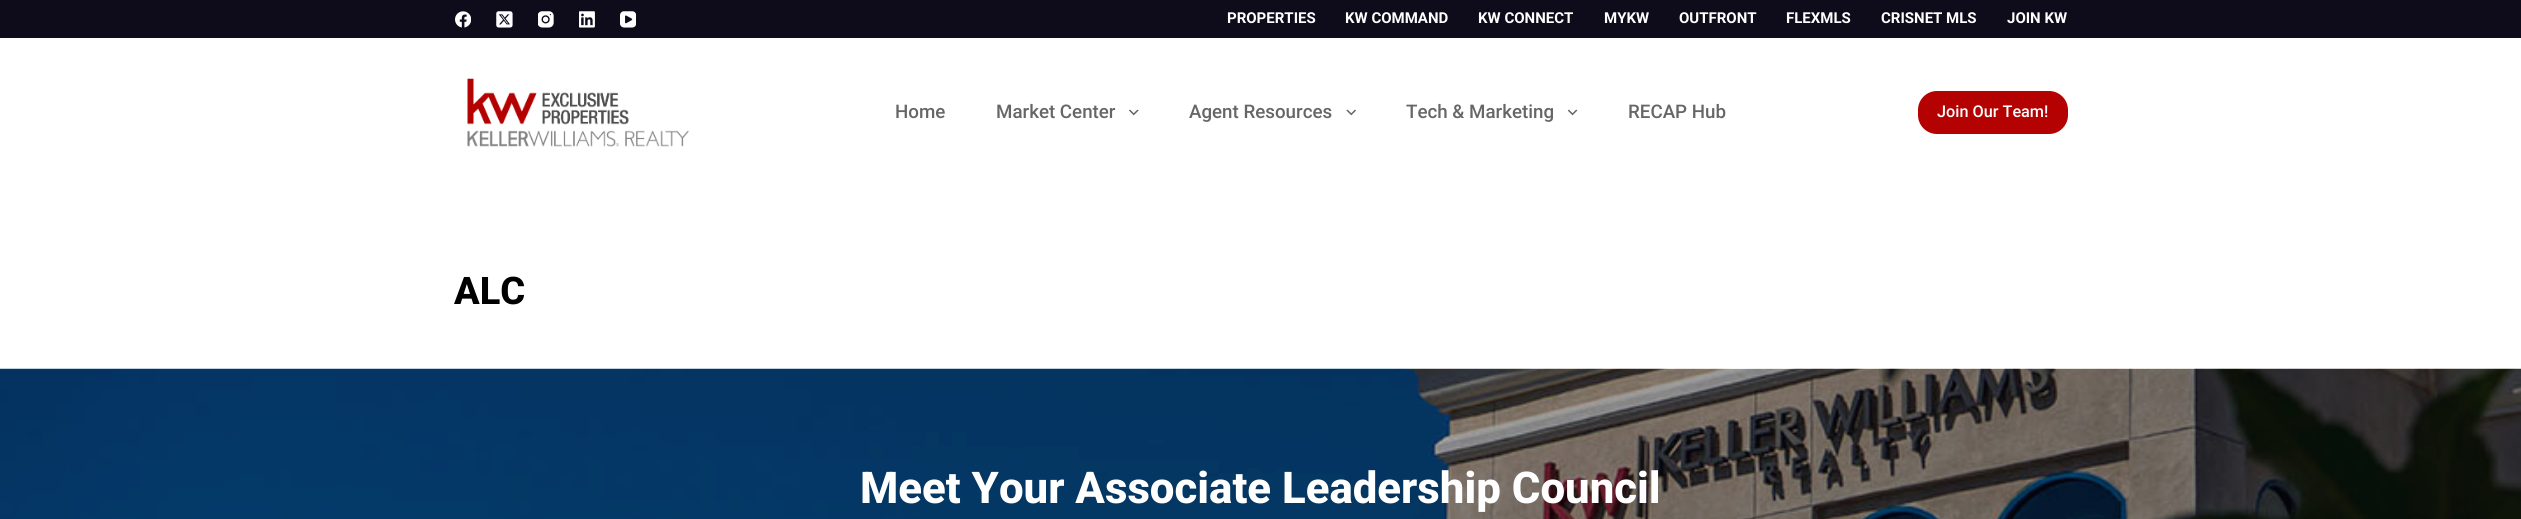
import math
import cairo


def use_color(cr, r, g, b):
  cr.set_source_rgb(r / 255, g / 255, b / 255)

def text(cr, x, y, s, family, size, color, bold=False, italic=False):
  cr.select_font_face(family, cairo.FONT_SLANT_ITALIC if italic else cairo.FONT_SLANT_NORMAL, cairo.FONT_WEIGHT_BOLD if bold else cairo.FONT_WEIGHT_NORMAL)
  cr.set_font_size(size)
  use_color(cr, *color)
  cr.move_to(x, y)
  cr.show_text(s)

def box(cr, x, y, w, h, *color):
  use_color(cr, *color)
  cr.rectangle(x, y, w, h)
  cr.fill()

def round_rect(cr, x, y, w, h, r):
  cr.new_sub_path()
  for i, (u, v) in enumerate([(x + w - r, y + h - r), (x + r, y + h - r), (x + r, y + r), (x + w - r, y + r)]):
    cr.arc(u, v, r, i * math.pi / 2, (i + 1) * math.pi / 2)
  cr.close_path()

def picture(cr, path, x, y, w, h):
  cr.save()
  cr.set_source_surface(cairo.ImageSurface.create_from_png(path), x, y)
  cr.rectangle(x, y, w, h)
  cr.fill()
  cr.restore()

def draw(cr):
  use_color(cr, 255, 255, 255)
  cr.paint()
  box(cr, 0, 0, 2521, 38, 14, 12, 27)
  picture(cr, "img_01.png", 455, 11, 16, 17)
  picture(cr, "img_02.png", 496, 11, 17, 17)
  picture(cr, "img_03.png", 538, 11, 16, 17)
  picture(cr, "img_04.png", 579, 11, 16, 17)
  picture(cr, "img_05.png", 620, 11, 16, 17)
  picture(cr, "img_06.png", 467, 78, 222, 69)
  picture(cr, "img_07.png", 1129, 109, 10, 7)
  picture(cr, "img_08.png", 1346, 109, 10, 7)
  picture(cr, "img_09.png", 1568, 109, 10, 7)
  use_color(cr, 180, 1, 1)
  round_rect(cr, 1918, 91, 150, 43, 19)
  cr.fill()
  picture(cr, "img_10.png", 0, 368, 2521, 151)
  text(cr, 1227, 23, "PROPERTIES", "Roboto", 15, (255, 255, 255), bold=True)
  text(cr, 1345, 23, "KW COMMAND", "Roboto", 15, (255, 255, 255), bold=True)
  text(cr, 1478, 23, "KW CONNECT", "Roboto", 15, (255, 255, 255), bold=True)
  text(cr, 1604, 23, "MYKW", "Roboto", 15, (255, 255, 255), bold=True)
  text(cr, 1679, 23, "OUTFRONT", "Roboto", 15, (255, 255, 255), bold=True)
  text(cr, 1786, 23, "FLEXMLS", "Roboto", 15, (255, 255, 255), bold=True)
  text(cr, 1881, 23, "CRISNET MLS", "Roboto", 15, (255, 255, 255), bold=True)
  text(cr, 2007, 23, "JOIN KW", "Roboto", 15, (255, 255, 255), bold=True)
  text(cr, 895, 118, "Home", "Roboto Medium", 18.75, (102, 102, 102))
  text(cr, 996, 118, "Market Center", "Roboto Medium", 18.75, (102, 102, 102))
  text(cr, 1189, 118, "Agent Resources", "Roboto Medium", 18.75, (102, 102, 102))
  text(cr, 1406, 118, "Tech & Marketing", "Roboto Medium", 18.75, (102, 102, 102))
  text(cr, 1628, 118, "RECAP Hub", "Roboto Medium", 18.75, (102, 102, 102))
  text(cr, 1937, 117, "Join Our Team!", "Roboto Medium", 16.25, (255, 255, 255))
  text(cr, 454, 304, "ALC", "Roboto ExtraBold", 38, (0, 0, 0))
  text(cr, 860, 503, "Meet Your Associate Leadership Council", "Roboto ExtraBold", 43.75, (255, 255, 255))


surface = cairo.ImageSurface(cairo.FORMAT_RGB24, 2521, 519)
cr = cairo.Context(surface)
options = cairo.FontOptions()
options.set_hint_metrics(cairo.HINT_METRICS_OFF)
options.set_hint_style(cairo.HINT_STYLE_NONE)
cr.set_font_options(options)
cr.set_miter_limit(4)
draw(cr)
surface.write_to_png("out.png")
